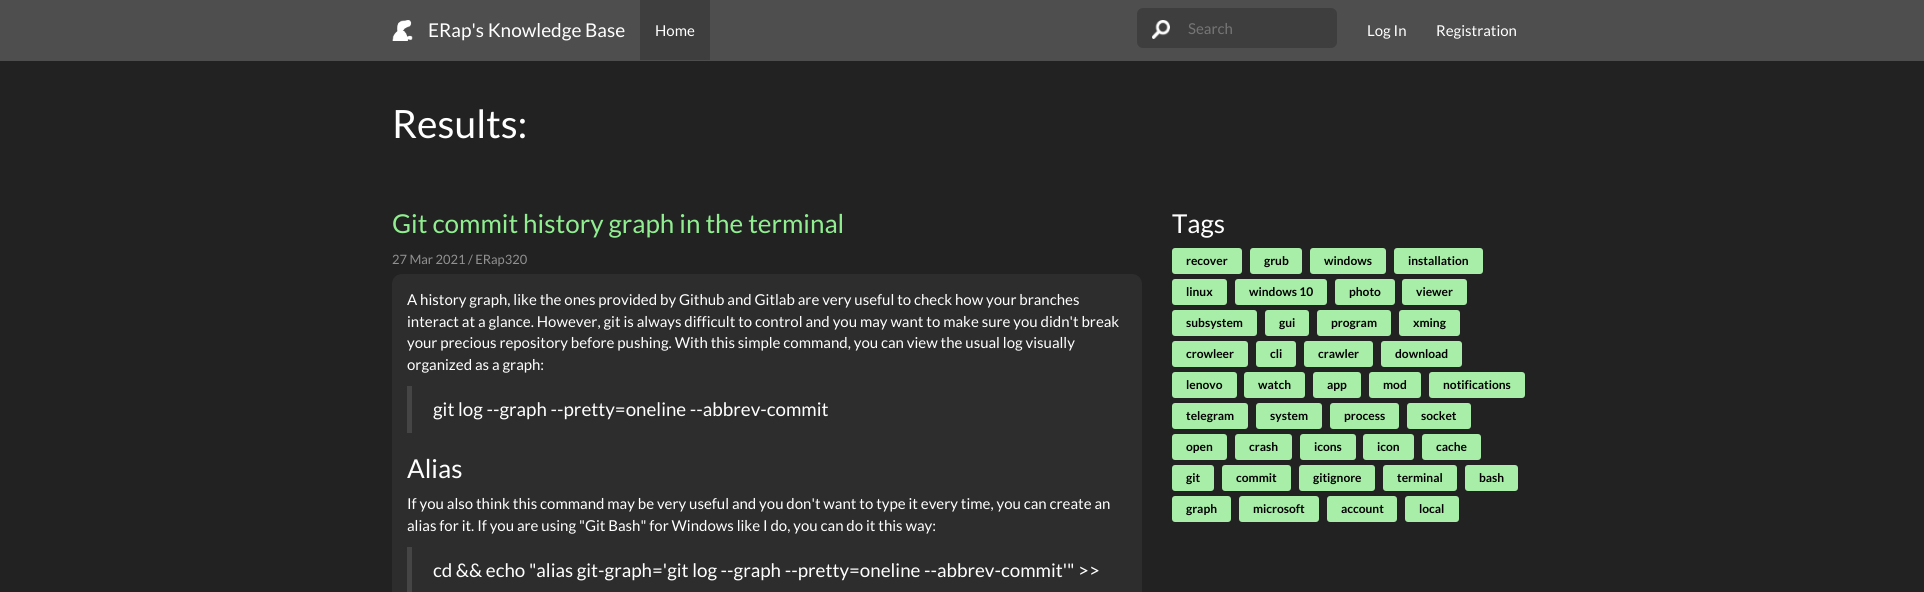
import math
import cairo


def use_color(cr, r, g, b):
  cr.set_source_rgb(r / 255, g / 255, b / 255)

def text(cr, x, y, s, family, size, color, bold=False, italic=False):
  cr.select_font_face(family, cairo.FONT_SLANT_ITALIC if italic else cairo.FONT_SLANT_NORMAL, cairo.FONT_WEIGHT_BOLD if bold else cairo.FONT_WEIGHT_NORMAL)
  cr.set_font_size(size)
  use_color(cr, *color)
  cr.move_to(x, y)
  cr.show_text(s)

def box(cr, x, y, w, h, *color):
  use_color(cr, *color)
  cr.rectangle(x, y, w, h)
  cr.fill()

def round_rect(cr, x, y, w, h, r):
  cr.new_sub_path()
  for i, (u, v) in enumerate([(x + w - r, y + h - r), (x + r, y + h - r), (x + r, y + r), (x + w - r, y + r)]):
    cr.arc(u, v, r, i * math.pi / 2, (i + 1) * math.pi / 2)
  cr.close_path()

def picture(cr, path, x, y, w, h):
  cr.save()
  cr.set_source_surface(cairo.ImageSurface.create_from_png(path), x, y)
  cr.rectangle(x, y, w, h)
  cr.fill()
  cr.restore()

def draw(cr):
  use_color(cr, 34, 34, 34)
  cr.paint()
  box(cr, 0, 0, 1924, 61, 78, 78, 78)
  picture(cr, "img_01.png", 392, 20, 21, 21)
  box(cr, 640, 0, 70, 60, 62, 62, 62)
  round_rect(cr, 1137, 8, 200, 40, 6)
  cr.fill()
  picture(cr, "img_02.png", 1152, 20, 18, 19)
  use_color(cr, 45, 45, 45)
  round_rect(cr, 392, 274, 750, 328, 10)
  cr.fill()
  box(cr, 407, 386, 5, 47, 70, 69, 69)
  box(cr, 407, 547, 5, 45, 70, 69, 69)
  use_color(cr, 168, 237, 168)
  round_rect(cr, 1172, 248, 70, 26, 3)
  cr.fill()
  round_rect(cr, 1250, 248, 52, 26, 3)
  cr.fill()
  round_rect(cr, 1310, 248, 76, 26, 3)
  cr.fill()
  round_rect(cr, 1394, 248, 89, 26, 3)
  cr.fill()
  round_rect(cr, 1172, 279, 55, 26, 3)
  cr.fill()
  round_rect(cr, 1235, 279, 92, 26, 3)
  cr.fill()
  round_rect(cr, 1335, 279, 60, 26, 3)
  cr.fill()
  round_rect(cr, 1402, 279, 65, 26, 3)
  cr.fill()
  round_rect(cr, 1172, 310, 85, 26, 3)
  cr.fill()
  round_rect(cr, 1265, 310, 44, 26, 3)
  cr.fill()
  round_rect(cr, 1317, 310, 74, 26, 3)
  cr.fill()
  round_rect(cr, 1399, 310, 61, 26, 3)
  cr.fill()
  round_rect(cr, 1172, 341, 76, 26, 3)
  cr.fill()
  round_rect(cr, 1256, 341, 40, 26, 3)
  cr.fill()
  round_rect(cr, 1304, 341, 69, 26, 3)
  cr.fill()
  round_rect(cr, 1381, 341, 81, 26, 3)
  cr.fill()
  round_rect(cr, 1172, 372, 65, 26, 3)
  cr.fill()
  round_rect(cr, 1244, 372, 61, 26, 3)
  cr.fill()
  round_rect(cr, 1313, 372, 48, 26, 3)
  cr.fill()
  round_rect(cr, 1369, 372, 52, 26, 3)
  cr.fill()
  round_rect(cr, 1429, 372, 96, 26, 3)
  cr.fill()
  round_rect(cr, 1172, 403, 76, 26, 3)
  cr.fill()
  round_rect(cr, 1256, 403, 66, 26, 3)
  cr.fill()
  round_rect(cr, 1330, 403, 69, 26, 3)
  cr.fill()
  round_rect(cr, 1407, 403, 64, 26, 3)
  cr.fill()
  round_rect(cr, 1172, 434, 55, 26, 3)
  cr.fill()
  round_rect(cr, 1235, 434, 57, 26, 3)
  cr.fill()
  round_rect(cr, 1300, 434, 56, 26, 3)
  cr.fill()
  round_rect(cr, 1363, 434, 51, 26, 3)
  cr.fill()
  round_rect(cr, 1422, 434, 59, 26, 3)
  cr.fill()
  round_rect(cr, 1172, 465, 42, 26, 3)
  cr.fill()
  round_rect(cr, 1222, 465, 69, 26, 3)
  cr.fill()
  round_rect(cr, 1299, 465, 76, 26, 3)
  cr.fill()
  round_rect(cr, 1383, 465, 74, 26, 3)
  cr.fill()
  round_rect(cr, 1465, 465, 53, 26, 3)
  cr.fill()
  round_rect(cr, 1172, 496, 59, 26, 3)
  cr.fill()
  round_rect(cr, 1239, 496, 80, 26, 3)
  cr.fill()
  round_rect(cr, 1327, 496, 70, 26, 3)
  cr.fill()
  round_rect(cr, 1405, 496, 54, 26, 3)
  cr.fill()
  text(cr, 428, 37, "ERap's Knowledge Base", "Lato", 19, (255, 255, 255))
  text(cr, 655, 36, "Home", "Lato", 15, (255, 255, 255))
  text(cr, 1188, 34, "Search", "Lato", 15, (117, 117, 117))
  text(cr, 1367, 36, "Log In", "Lato", 15, (255, 255, 255))
  text(cr, 1436, 36, "Registration", "Lato", 15, (255, 255, 255))
  text(cr, 392, 138, "Results:", "Lato", 39, (255, 255, 255))
  text(cr, 392, 233, "Git commit history graph in the terminal", "Lato", 26, (144, 238, 144))
  text(cr, 392, 264, "27 Mar 2021 / ERap320", "Lato", 12.9, (145, 145, 145))
  text(cr, 407, 305, "A history graph, like the ones provided by Github and Gitlab are very useful to check how your branches", "Lato", 15, (255, 255, 255))
  text(cr, 407, 327, "interact at a glance. However, git is always difficult to control and you may want to make sure you didn't break", "Lato", 15, (255, 255, 255))
  text(cr, 407, 348, "your precious repository before pushing. With this simple command, you can view the usual log visually", "Lato", 15, (255, 255, 255))
  text(cr, 407, 370, "organized as a graph:", "Lato", 15, (255, 255, 255))
  text(cr, 433, 416, "git log --graph --pretty=oneline --abbrev-commit", "Lato", 18.75, (255, 255, 255))
  text(cr, 407, 478, "Alias", "Lato", 26, (255, 255, 255))
  text(cr, 407, 509, "If you also think this command may be very useful and you don't want to type it every time, you can create an", "Lato", 15, (255, 255, 255))
  text(cr, 407, 531, "alias for it. If you are using \"Git Bash\" for Windows like I do, you can do it this way:", "Lato", 15, (255, 255, 255))
  text(cr, 433, 577, "cd && echo \"alias git-graph='git log --graph --pretty=oneline --abbrev-commit'\" >>", "Lato", 18.75, (255, 255, 255))
  text(cr, 1172, 233, "Tags", "Lato", 26, (255, 255, 255))
  text(cr, 1186, 265, "recover", "Lato", 12, (0, 0, 0), bold=True)
  text(cr, 1264, 265, "grub", "Lato", 12, (0, 0, 0), bold=True)
  text(cr, 1324, 265, "windows", "Lato", 12, (0, 0, 0), bold=True)
  text(cr, 1408, 265, "installation", "Lato", 12, (0, 0, 0), bold=True)
  text(cr, 1186, 296, "linux", "Lato", 12, (0, 0, 0), bold=True)
  text(cr, 1249, 296, "windows 10", "Lato", 12, (0, 0, 0), bold=True)
  text(cr, 1349, 296, "photo", "Lato", 12, (0, 0, 0), bold=True)
  text(cr, 1416, 296, "viewer", "Lato", 12, (0, 0, 0), bold=True)
  text(cr, 1186, 327, "subsystem", "Lato", 12, (0, 0, 0), bold=True)
  text(cr, 1279, 327, "gui", "Lato", 12, (0, 0, 0), bold=True)
  text(cr, 1331, 327, "program", "Lato", 12, (0, 0, 0), bold=True)
  text(cr, 1413, 327, "xming", "Lato", 12, (0, 0, 0), bold=True)
  text(cr, 1186, 358, "crowleer", "Lato", 12, (0, 0, 0), bold=True)
  text(cr, 1270, 358, "cli", "Lato", 12, (0, 0, 0), bold=True)
  text(cr, 1318, 358, "crawler", "Lato", 12, (0, 0, 0), bold=True)
  text(cr, 1395, 358, "download", "Lato", 12, (0, 0, 0), bold=True)
  text(cr, 1186, 389, "lenovo", "Lato", 12, (0, 0, 0), bold=True)
  text(cr, 1258, 389, "watch", "Lato", 12, (0, 0, 0), bold=True)
  text(cr, 1327, 389, "app", "Lato", 12, (0, 0, 0), bold=True)
  text(cr, 1383, 389, "mod", "Lato", 12, (0, 0, 0), bold=True)
  text(cr, 1443, 389, "notifications", "Lato", 12, (0, 0, 0), bold=True)
  text(cr, 1186, 420, "telegram", "Lato", 12, (0, 0, 0), bold=True)
  text(cr, 1270, 420, "system", "Lato", 12, (0, 0, 0), bold=True)
  text(cr, 1344, 420, "process", "Lato", 12, (0, 0, 0), bold=True)
  text(cr, 1421, 420, "socket", "Lato", 12, (0, 0, 0), bold=True)
  text(cr, 1186, 451, "open", "Lato", 12, (0, 0, 0), bold=True)
  text(cr, 1249, 451, "crash", "Lato", 12, (0, 0, 0), bold=True)
  text(cr, 1314, 451, "icons", "Lato", 12, (0, 0, 0), bold=True)
  text(cr, 1377, 451, "icon", "Lato", 12, (0, 0, 0), bold=True)
  text(cr, 1436, 451, "cache", "Lato", 12, (0, 0, 0), bold=True)
  text(cr, 1186, 482, "git", "Lato", 12, (0, 0, 0), bold=True)
  text(cr, 1236, 482, "commit", "Lato", 12, (0, 0, 0), bold=True)
  text(cr, 1313, 482, "gitignore", "Lato", 12, (0, 0, 0), bold=True)
  text(cr, 1397, 482, "terminal", "Lato", 12, (0, 0, 0), bold=True)
  text(cr, 1479, 482, "bash", "Lato", 12, (0, 0, 0), bold=True)
  text(cr, 1186, 513, "graph", "Lato", 12, (0, 0, 0), bold=True)
  text(cr, 1253, 513, "microsoft", "Lato", 12, (0, 0, 0), bold=True)
  text(cr, 1341, 513, "account", "Lato", 12, (0, 0, 0), bold=True)
  text(cr, 1419, 513, "local", "Lato", 12, (0, 0, 0), bold=True)


surface = cairo.ImageSurface(cairo.FORMAT_RGB24, 1924, 592)
cr = cairo.Context(surface)
options = cairo.FontOptions()
options.set_hint_metrics(cairo.HINT_METRICS_OFF)
options.set_hint_style(cairo.HINT_STYLE_NONE)
cr.set_font_options(options)
cr.set_miter_limit(4)
draw(cr)
surface.write_to_png("out.png")
